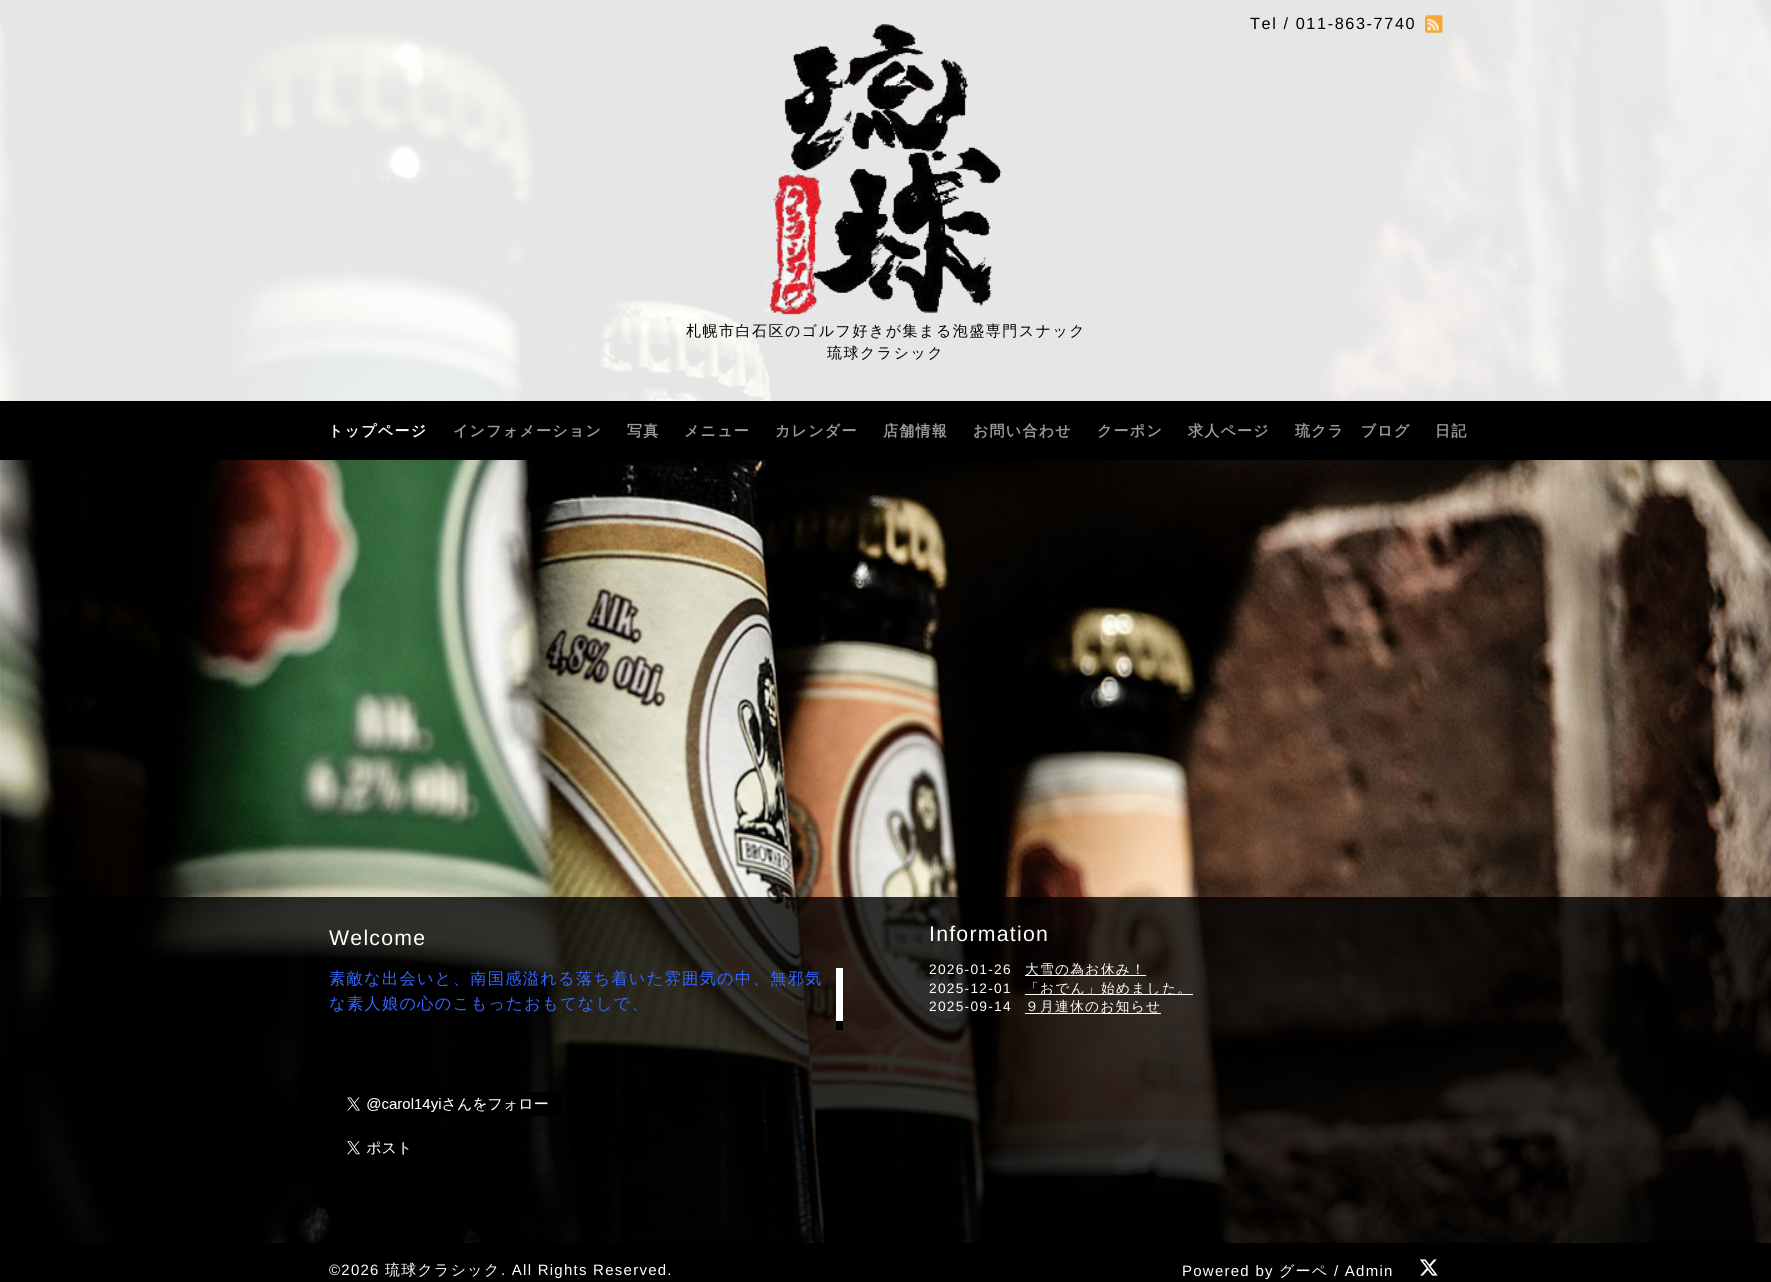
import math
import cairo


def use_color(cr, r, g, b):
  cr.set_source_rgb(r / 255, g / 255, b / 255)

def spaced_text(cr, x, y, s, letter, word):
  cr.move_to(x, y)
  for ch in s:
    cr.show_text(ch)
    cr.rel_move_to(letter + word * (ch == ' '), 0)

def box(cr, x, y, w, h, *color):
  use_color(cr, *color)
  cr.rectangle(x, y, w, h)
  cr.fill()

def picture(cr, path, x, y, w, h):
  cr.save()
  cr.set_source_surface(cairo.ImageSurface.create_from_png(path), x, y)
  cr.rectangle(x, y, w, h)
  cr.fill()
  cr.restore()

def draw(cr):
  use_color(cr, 255, 255, 255)
  cr.paint()
  picture(cr, "img_01.png", 0, 0, 1771, 1243)
  cr.set_source_rgba(1, 1, 1, 0.9)
  cr.rectangle(0, 0, 1771, 401)
  cr.fill()
  picture(cr, "img_02.png", 1425, 15, 18, 18)
  picture(cr, "img_03.png", 763, 24, 239, 292)
  box(cr, 0, 401, 1771, 59, 0, 0, 0)
  cr.set_source_rgba(0, 0, 0, 0.8)
  cr.rectangle(0, 897, 1771, 346)
  cr.fill()
  box(cr, 836, 1021, 7, 9, 0, 0, 0)
  box(cr, 836, 968, 7, 53, 255, 255, 255)
  box(cr, 1025, 975, 121, 1, 255, 255, 255)
  box(cr, 1025, 994, 168, 1, 255, 255, 255)
  box(cr, 1025, 1013, 136, 1, 255, 255, 255)
  picture(cr, "img_04.png", 347, 1092, 216, 25)
  picture(cr, "img_05.png", 347, 1141, 62, 14)
  box(cr, 0, 1243, 1771, 39, 0, 0, 0)
  picture(cr, "img_06.png", 1420, 1259, 18, 17)
  cr.select_font_face("Liberation Sans")
  cr.set_font_size(16.25)
  spaced_text(cr, 1250, 29, "Tel / 011-863-7740", 1.6, 0)
  cr.select_font_face("WenQuanYi Zen Hei Medium")
  cr.set_font_size(15)
  spaced_text(cr, 686, 336, "札幌市白石区のゴルフ好きが集まる泡盛専門スナック", 1.5, 0)
  spaced_text(cr, 827, 358, "琉球クラシック", 1.5, 0)
  cr.select_font_face("WenQuanYi Zen Hei", cairo.FONT_SLANT_NORMAL, cairo.FONT_WEIGHT_BOLD)
  use_color(cr, 255, 255, 255)
  spaced_text(cr, 328, 436, "トップページ", 1.25, 0)
  use_color(cr, 154, 154, 154)
  spaced_text(cr, 453, 436, "インフォメーション", 1.25, 0)
  spaced_text(cr, 627, 436, "写真", 1.25, 0)
  spaced_text(cr, 684, 436, "メニュー", 1.25, 0)
  spaced_text(cr, 775, 436, "カレンダー", 1.25, 0)
  spaced_text(cr, 883, 436, "店舗情報", 1.25, 0)
  spaced_text(cr, 973, 436, "お問い合わせ", 1.25, 0)
  spaced_text(cr, 1097, 436, "クーポン", 1.25, 0)
  spaced_text(cr, 1188, 436, "求人ページ", 1.25, 0)
  spaced_text(cr, 1295, 436, "琉クラ　ブログ", 1.25, 0)
  spaced_text(cr, 1435, 436, "日記", 1.25, 0)
  cr.select_font_face("Liberation Sans")
  cr.set_font_size(21.25)
  use_color(cr, 255, 255, 255)
  spaced_text(cr, 329, 945, "Welcome", 1.25, 0)
  cr.select_font_face("WenQuanYi Zen Hei Medium")
  cr.set_font_size(16.25)
  use_color(cr, 51, 102, 255)
  spaced_text(cr, 329, 984, "素敵な出会いと、南国感溢れる落ち着いた雰囲気の中、無邪気", 1.25, 0)
  spaced_text(cr, 329, 1009, "な素人娘の心のこもったおもてなしで、", 1.25, 0)
  cr.select_font_face("Liberation Sans")
  cr.set_font_size(21.25)
  use_color(cr, 255, 255, 255)
  spaced_text(cr, 929, 941, "Information", 1.25, 0)
  cr.set_font_size(13.75)
  spaced_text(cr, 929, 974, "2026-01-26", 1.25, 0)
  cr.select_font_face("WenQuanYi Zen Hei Medium")
  spaced_text(cr, 1025, 974, "大雪の為お休み！", 1.25, 0)
  cr.select_font_face("Liberation Sans")
  spaced_text(cr, 929, 993, "2025-12-01", 1.25, 0)
  cr.select_font_face("WenQuanYi Zen Hei Medium")
  spaced_text(cr, 1025, 993, "「おでん」始めました。", 1.25, 0)
  cr.select_font_face("Liberation Sans")
  spaced_text(cr, 929, 1011, "2025-09-14", 1.25, 0)
  cr.select_font_face("WenQuanYi Zen Hei Medium")
  spaced_text(cr, 1025, 1011, "９月連休のお知らせ", 1.25, 0)
  cr.select_font_face("Liberation Sans")
  cr.set_font_size(15)
  spaced_text(cr, 329, 1275, "©2026", 1.25, 0)
  cr.select_font_face("WenQuanYi Zen Hei Medium")
  spaced_text(cr, 385, 1275, "琉球クラシック", 1.25, 0)
  cr.select_font_face("Liberation Sans")
  spaced_text(cr, 501, 1275, ". All Rights Reserved.", 1.25, 0)
  spaced_text(cr, 1182, 1276, "Powered by", 1.25, 0)
  cr.select_font_face("WenQuanYi Zen Hei Medium")
  spaced_text(cr, 1279, 1276, "グーペ", 1.25, 0)
  cr.select_font_face("Liberation Sans")
  spaced_text(cr, 1334, 1276, "/ Admin", 1.25, 0)


surface = cairo.ImageSurface(cairo.FORMAT_RGB24, 1771, 1282)
cr = cairo.Context(surface)
options = cairo.FontOptions()
options.set_hint_metrics(cairo.HINT_METRICS_OFF)
options.set_hint_style(cairo.HINT_STYLE_NONE)
cr.set_font_options(options)
cr.set_miter_limit(4)
draw(cr)
surface.write_to_png("out.png")
